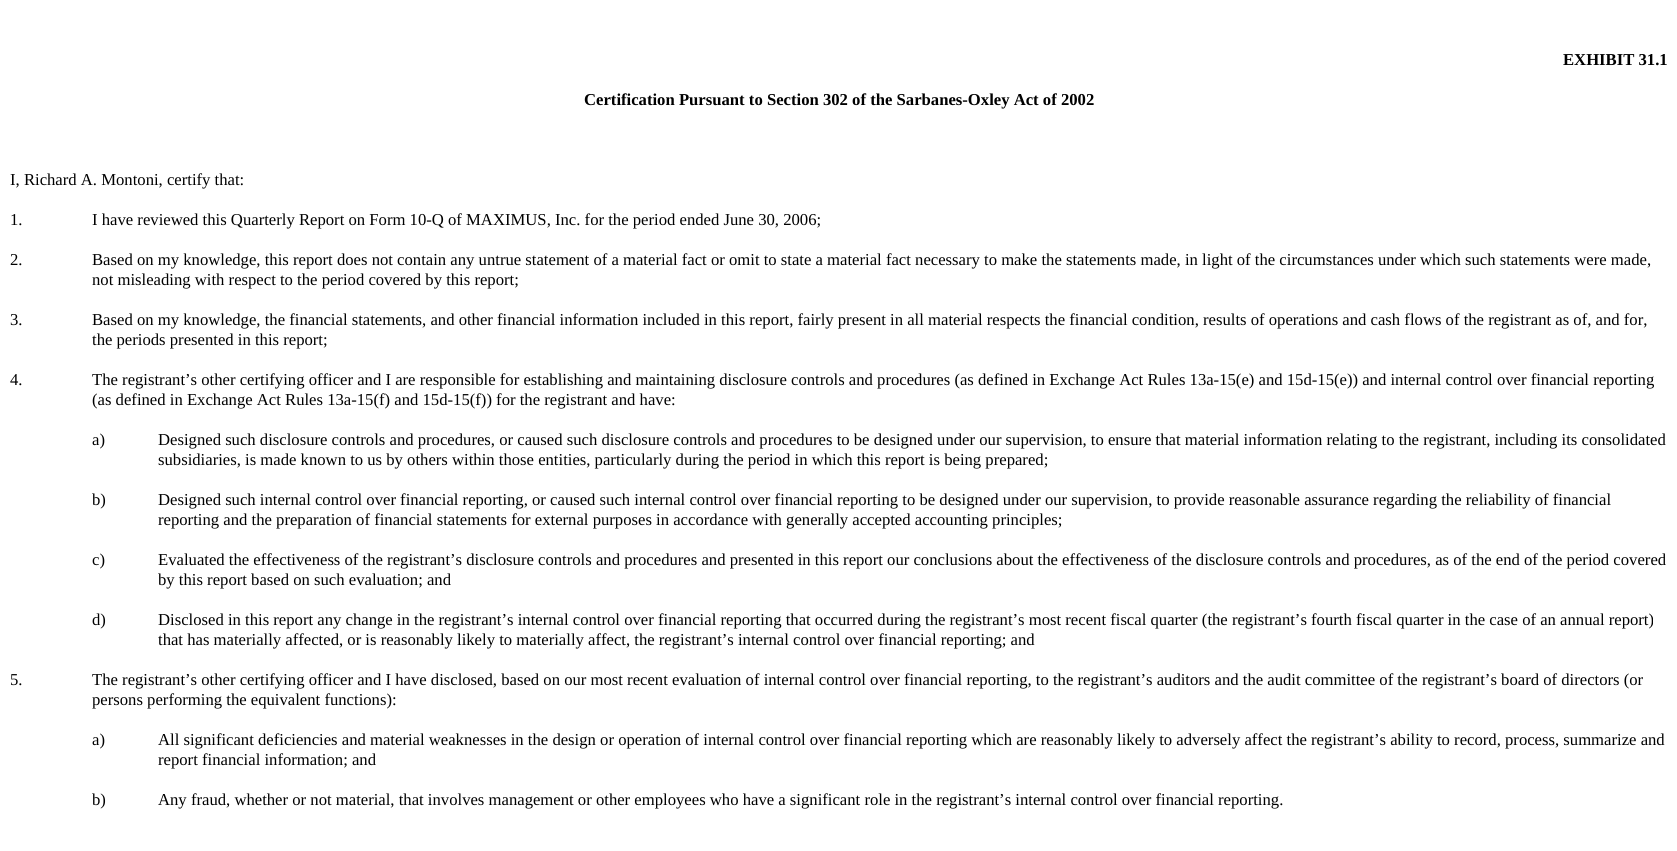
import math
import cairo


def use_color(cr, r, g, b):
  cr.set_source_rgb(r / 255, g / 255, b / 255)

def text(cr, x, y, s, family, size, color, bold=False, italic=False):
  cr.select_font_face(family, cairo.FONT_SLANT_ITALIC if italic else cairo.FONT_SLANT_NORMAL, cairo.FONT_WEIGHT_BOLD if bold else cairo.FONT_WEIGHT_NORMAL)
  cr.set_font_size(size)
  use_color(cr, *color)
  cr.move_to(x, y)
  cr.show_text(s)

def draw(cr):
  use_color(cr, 255, 255, 255)
  cr.paint()
  text(cr, 1563, 65, "EXHIBIT 31.1", "Liberation Serif", 16.67, (0, 0, 0), bold=True)
  text(cr, 584, 105, "Certification Pursuant to Section 302 of the Sarbanes-Oxley Act of 2002", "Liberation Serif", 16.67, (0, 0, 0), bold=True)
  text(cr, 10, 185, "I, Richard A. Montoni, certify that:", "Liberation Serif", 16.67, (0, 0, 0))
  text(cr, 10, 225, "1.", "Liberation Serif", 16.67, (0, 0, 0))
  text(cr, 92, 225, "I have reviewed this Quarterly Report on Form 10-Q of MAXIMUS, Inc. for the period ended June 30, 2006;", "Liberation Serif", 16.67, (0, 0, 0))
  text(cr, 10, 265, "2.", "Liberation Serif", 16.67, (0, 0, 0))
  text(cr, 92, 265, "Based on my knowledge, this report does not contain any untrue statement of a material fact or omit to state a material fact necessary to make the statements made, in light of the circumstances under which such statements were made,", "Liberation Serif", 16.67, (0, 0, 0))
  text(cr, 92, 285, "not misleading with respect to the period covered by this report;", "Liberation Serif", 16.67, (0, 0, 0))
  text(cr, 10, 325, "3.", "Liberation Serif", 16.67, (0, 0, 0))
  text(cr, 92, 325, "Based on my knowledge, the financial statements, and other financial information included in this report, fairly present in all material respects the financial condition, results of operations and cash flows of the registrant as of, and for,", "Liberation Serif", 16.67, (0, 0, 0))
  text(cr, 92, 345, "the periods presented in this report;", "Liberation Serif", 16.67, (0, 0, 0))
  text(cr, 10, 385, "4.", "Liberation Serif", 16.67, (0, 0, 0))
  text(cr, 92, 385, "The registrant’s other certifying officer and I are responsible for establishing and maintaining disclosure controls and procedures (as defined in Exchange Act Rules 13a-15(e) and 15d-15(e)) and internal control over financial reporting", "Liberation Serif", 16.67, (0, 0, 0))
  text(cr, 92, 405, "(as defined in Exchange Act Rules 13a-15(f) and 15d-15(f)) for the registrant and have:", "Liberation Serif", 16.67, (0, 0, 0))
  text(cr, 92, 445, "a)", "Liberation Serif", 16.67, (0, 0, 0))
  text(cr, 158, 445, "Designed such disclosure controls and procedures, or caused such disclosure controls and procedures to be designed under our supervision, to ensure that material information relating to the registrant, including its consolidated", "Liberation Serif", 16.67, (0, 0, 0))
  text(cr, 158, 465, "subsidiaries, is made known to us by others within those entities, particularly during the period in which this report is being prepared;", "Liberation Serif", 16.67, (0, 0, 0))
  text(cr, 92, 505, "b)", "Liberation Serif", 16.67, (0, 0, 0))
  text(cr, 158, 505, "Designed such internal control over financial reporting, or caused such internal control over financial reporting to be designed under our supervision, to provide reasonable assurance regarding the reliability of financial", "Liberation Serif", 16.67, (0, 0, 0))
  text(cr, 158, 525, "reporting and the preparation of financial statements for external purposes in accordance with generally accepted accounting principles;", "Liberation Serif", 16.67, (0, 0, 0))
  text(cr, 92, 565, "c)", "Liberation Serif", 16.67, (0, 0, 0))
  text(cr, 158, 565, "Evaluated the effectiveness of the registrant’s disclosure controls and procedures and presented in this report our conclusions about the effectiveness of the disclosure controls and procedures, as of the end of the period covered", "Liberation Serif", 16.67, (0, 0, 0))
  text(cr, 158, 585, "by this report based on such evaluation; and", "Liberation Serif", 16.67, (0, 0, 0))
  text(cr, 92, 625, "d)", "Liberation Serif", 16.67, (0, 0, 0))
  text(cr, 158, 625, "Disclosed in this report any change in the registrant’s internal control over financial reporting that occurred during the registrant’s most recent fiscal quarter (the registrant’s fourth fiscal quarter in the case of an annual report)", "Liberation Serif", 16.67, (0, 0, 0))
  text(cr, 158, 645, "that has materially affected, or is reasonably likely to materially affect, the registrant’s internal control over financial reporting; and", "Liberation Serif", 16.67, (0, 0, 0))
  text(cr, 10, 685, "5.", "Liberation Serif", 16.67, (0, 0, 0))
  text(cr, 92, 685, "The registrant’s other certifying officer and I have disclosed, based on our most recent evaluation of internal control over financial reporting, to the registrant’s auditors and the audit committee of the registrant’s board of directors (or", "Liberation Serif", 16.67, (0, 0, 0))
  text(cr, 92, 705, "persons performing the equivalent functions):", "Liberation Serif", 16.67, (0, 0, 0))
  text(cr, 92, 745, "a)", "Liberation Serif", 16.67, (0, 0, 0))
  text(cr, 158, 745, "All significant deficiencies and material weaknesses in the design or operation of internal control over financial reporting which are reasonably likely to adversely affect the registrant’s ability to record, process, summarize and", "Liberation Serif", 16.67, (0, 0, 0))
  text(cr, 158, 765, "report financial information; and", "Liberation Serif", 16.67, (0, 0, 0))
  text(cr, 92, 805, "b)", "Liberation Serif", 16.67, (0, 0, 0))
  text(cr, 158, 805, "Any fraud, whether or not material, that involves management or other employees who have a significant role in the registrant’s internal control over financial reporting.", "Liberation Serif", 16.67, (0, 0, 0))


surface = cairo.ImageSurface(cairo.FORMAT_RGB24, 1677, 851)
cr = cairo.Context(surface)
options = cairo.FontOptions()
options.set_hint_metrics(cairo.HINT_METRICS_OFF)
options.set_hint_style(cairo.HINT_STYLE_NONE)
cr.set_font_options(options)
cr.set_miter_limit(4)
draw(cr)
surface.write_to_png("out.png")
